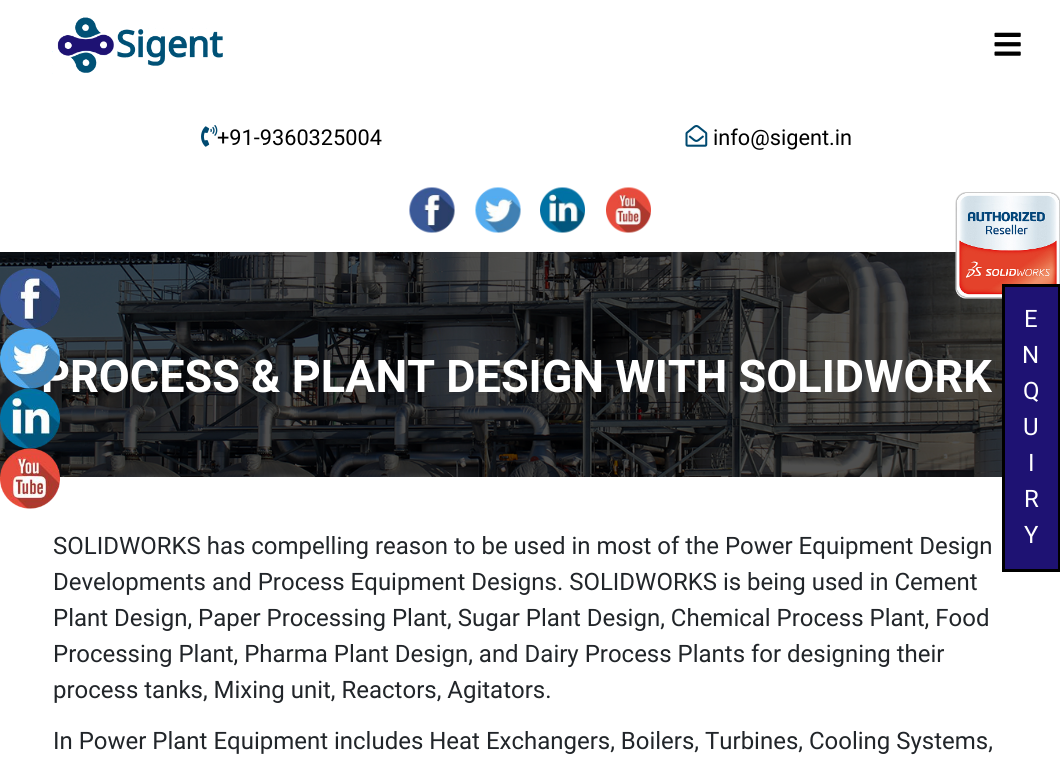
import math
import cairo


def use_color(cr, r, g, b):
  cr.set_source_rgb(r / 255, g / 255, b / 255)

def text(cr, x, y, s, family, size, color, bold=False, italic=False):
  cr.select_font_face(family, cairo.FONT_SLANT_ITALIC if italic else cairo.FONT_SLANT_NORMAL, cairo.FONT_WEIGHT_BOLD if bold else cairo.FONT_WEIGHT_NORMAL)
  cr.set_font_size(size)
  use_color(cr, *color)
  cr.move_to(x, y)
  cr.show_text(s)

def picture(cr, path, x, y, w, h):
  cr.save()
  cr.set_source_surface(cairo.ImageSurface.create_from_png(path), x, y)
  cr.rectangle(x, y, w, h)
  cr.fill()
  cr.restore()

def draw(cr):
  use_color(cr, 255, 255, 255)
  cr.paint()
  picture(cr, "img_01.png", 994, 32, 27, 24)
  picture(cr, "img_02.png", 52, 17, 171, 57)
  picture(cr, "img_03.png", 201, 125, 17, 22)
  picture(cr, "img_04.png", 685, 125, 23, 22)
  picture(cr, "img_05.png", 409, 187, 46, 46)
  picture(cr, "img_06.png", 475, 187, 46, 46)
  picture(cr, "img_07.png", 540, 187, 45, 46)
  picture(cr, "img_08.png", 606, 187, 45, 46)
  picture(cr, "img_13.png", 0, 252, 1002, 225)
  picture(cr, "img_09.png", 0, 268, 60, 61)
  picture(cr, "img_14.png", 955, 192, 105, 107)
  use_color(cr, 30, 18, 115)
  cr.rectangle(1003.5, 285.5, 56, 285)
  cr.fill_preserve()
  use_color(cr, 0, 0, 0)
  cr.set_line_width(3)
  cr.stroke()
  text(cr, 217, 145, "+91-9360325004", "Roboto", 21.75, (0, 0, 0))
  text(cr, 713, 145, "info@sigent.in", "Roboto", 21.75, (0, 0, 0))
  text(cr, 41, 392, "PROCESS & PLANT DESIGN WITH SOLIDWORK", "Roboto", 45, (255, 255, 255), bold=True)
  picture(cr, "img_10.png", 0, 328, 60, 61)
  picture(cr, "img_11.png", 0, 388, 60, 61)
  picture(cr, "img_12.png", 0, 448, 60, 61)
  text(cr, 1024, 327, "E", "Roboto", 24, (255, 255, 255))
  text(cr, 1022, 363, "N", "Roboto", 24, (255, 255, 255))
  text(cr, 1023, 399, "Q", "Roboto", 24, (255, 255, 255))
  text(cr, 1023, 435, "U", "Roboto", 24, (255, 255, 255))
  text(cr, 1028, 471, "I", "Roboto", 24, (255, 255, 255))
  text(cr, 1024, 507, "R", "Roboto", 24, (255, 255, 255))
  text(cr, 1024, 543, "Y", "Roboto", 24, (255, 255, 255))
  text(cr, 53, 554, "SOLIDWORKS has compelling reason to be used in most of the Power Equipment Design", "Roboto", 24, (33, 37, 41))
  text(cr, 53, 590, "Developments and Process Equipment Designs. SOLIDWORKS is being used in Cement", "Roboto", 24, (33, 37, 41))
  text(cr, 53, 626, "Plant Design, Paper Processing Plant, Sugar Plant Design, Chemical Process Plant, Food", "Roboto", 24, (33, 37, 41))
  text(cr, 53, 662, "Processing Plant, Pharma Plant Design, and Dairy Process Plants for designing their", "Roboto", 24, (33, 37, 41))
  text(cr, 53, 698, "process tanks, Mixing unit, Reactors, Agitators.", "Roboto", 24, (33, 37, 41))
  text(cr, 53, 749, "In Power Plant Equipment includes Heat Exchangers, Boilers, Turbines, Cooling Systems,", "Roboto", 24, (33, 37, 41))


surface = cairo.ImageSurface(cairo.FORMAT_RGB24, 1060, 766)
cr = cairo.Context(surface)
options = cairo.FontOptions()
options.set_hint_metrics(cairo.HINT_METRICS_OFF)
options.set_hint_style(cairo.HINT_STYLE_NONE)
cr.set_font_options(options)
cr.set_miter_limit(4)
draw(cr)
surface.write_to_png("out.png")
